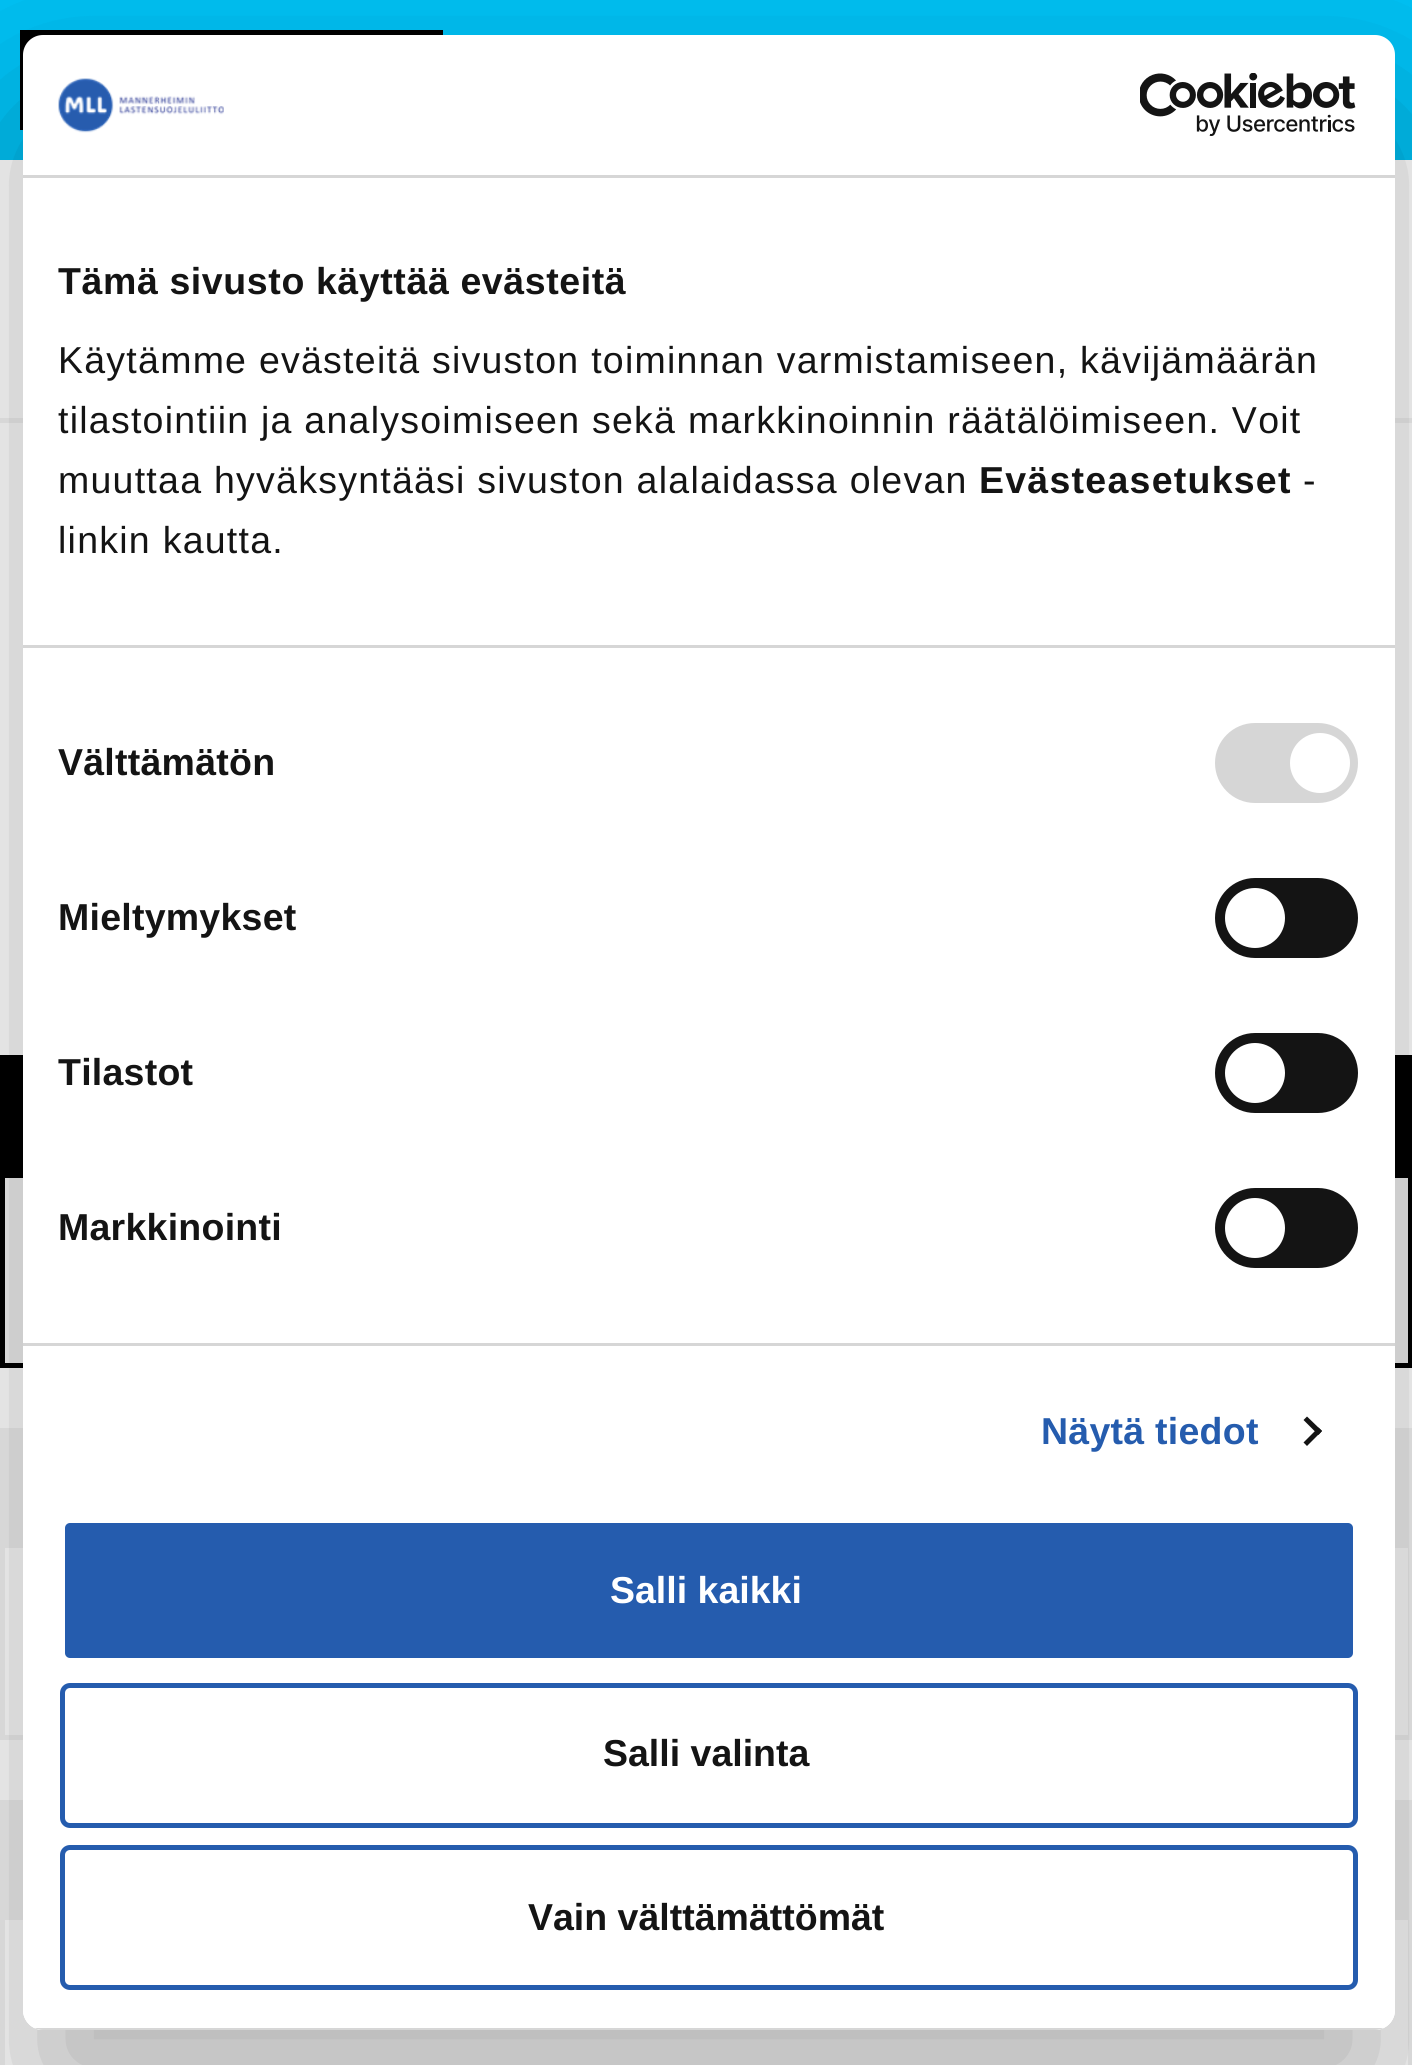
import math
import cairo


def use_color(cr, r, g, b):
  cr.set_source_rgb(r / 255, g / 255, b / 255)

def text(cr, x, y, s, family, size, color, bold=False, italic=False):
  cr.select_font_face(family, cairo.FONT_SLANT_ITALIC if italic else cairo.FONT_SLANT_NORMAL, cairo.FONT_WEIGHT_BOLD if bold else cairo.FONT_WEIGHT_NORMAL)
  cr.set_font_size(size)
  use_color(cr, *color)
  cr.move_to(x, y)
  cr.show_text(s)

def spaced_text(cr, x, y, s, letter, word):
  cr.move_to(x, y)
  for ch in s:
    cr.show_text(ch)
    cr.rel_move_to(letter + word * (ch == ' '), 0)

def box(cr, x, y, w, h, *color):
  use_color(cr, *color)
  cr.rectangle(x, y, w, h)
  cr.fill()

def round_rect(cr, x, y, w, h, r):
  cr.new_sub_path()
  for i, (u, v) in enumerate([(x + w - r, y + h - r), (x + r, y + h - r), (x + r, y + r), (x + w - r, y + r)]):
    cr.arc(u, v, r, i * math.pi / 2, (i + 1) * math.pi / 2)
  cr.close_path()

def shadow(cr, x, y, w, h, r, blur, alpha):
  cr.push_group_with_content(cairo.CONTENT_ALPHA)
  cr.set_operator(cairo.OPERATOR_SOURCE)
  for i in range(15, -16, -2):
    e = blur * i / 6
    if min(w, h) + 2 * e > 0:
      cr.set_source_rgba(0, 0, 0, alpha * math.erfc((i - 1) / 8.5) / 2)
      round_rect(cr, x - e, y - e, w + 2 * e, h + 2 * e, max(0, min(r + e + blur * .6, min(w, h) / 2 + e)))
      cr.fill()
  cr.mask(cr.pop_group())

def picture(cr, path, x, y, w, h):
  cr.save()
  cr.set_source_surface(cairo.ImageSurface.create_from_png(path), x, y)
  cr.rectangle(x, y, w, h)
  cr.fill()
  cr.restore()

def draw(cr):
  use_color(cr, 255, 255, 255)
  cr.paint()
  box(cr, 0, 0, 1412, 160, 0, 192, 243)
  box(cr, 20, 30, 423, 100, 0, 0, 0)
  box(cr, 0, 418, 1412, 5, 242, 242, 242)
  cr.rectangle(2.5, 1057.5, 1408, 308)
  use_color(cr, 0, 0, 0)
  cr.set_line_width(5)
  cr.stroke()
  box(cr, 5, 1060, 1403, 118, 0, 0, 0)
  box(cr, 5, 1178, 1403, 185, 242, 242, 242)
  cr.rectangle(2.5, 1430.5, 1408, 307)
  cr.stroke()
  box(cr, 5, 1433, 1403, 115, 242, 242, 242)
  cr.rectangle(2.5, 1802.5, 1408, 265)
  cr.stroke()
  box(cr, 5, 1805, 1403, 115, 242, 242, 242)
  cr.save()
  cr.set_fill_rule(cairo.FILL_RULE_EVEN_ODD)
  cr.new_path()
  cr.move_to(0, 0)
  cr.line_to(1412, 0)
  cr.line_to(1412, 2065)
  cr.line_to(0, 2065)
  cr.close_path()
  cr.move_to(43, 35)
  cr.line_to(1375, 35)
  cr.curve_to(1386, 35, 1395, 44, 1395, 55)
  cr.line_to(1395, 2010)
  cr.curve_to(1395, 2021, 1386, 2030, 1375, 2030)
  cr.line_to(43, 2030)
  cr.curve_to(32, 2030, 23, 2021, 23, 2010)
  cr.line_to(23, 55)
  cr.curve_to(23, 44, 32, 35, 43, 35)
  cr.close_path()
  cr.clip()
  use_color(cr, 0, 0, 0)
  shadow(cr, 23, 115, 1372, 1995, 20, 85, 0.3)
  cr.restore()
  use_color(cr, 255, 255, 255)
  round_rect(cr, 23, 35, 1372, 1995, 20)
  cr.fill()
  box(cr, 23, 175, 1372, 3, 214, 214, 214)
  picture(cr, "img_01.png", 58, 78, 166, 55)
  picture(cr, "img_02.png", 1140, 73, 216, 63)
  box(cr, 23, 645, 1372, 3, 214, 214, 214)
  box(cr, 23, 1343, 1372, 3, 214, 214, 214)
  round_rect(cr, 1215, 723, 143, 80, 40)
  cr.fill()
  use_color(cr, 255, 255, 255)
  cr.arc(1320, 763, 30, 0, 2 * math.pi)
  cr.fill()
  use_color(cr, 20, 20, 20)
  round_rect(cr, 1215, 878, 143, 80, 40)
  cr.fill()
  use_color(cr, 255, 255, 255)
  cr.arc(1255, 918, 30, 0, 2 * math.pi)
  cr.fill()
  use_color(cr, 20, 20, 20)
  round_rect(cr, 1215, 1033, 143, 80, 40)
  cr.fill()
  use_color(cr, 255, 255, 255)
  cr.arc(1255, 1073, 30, 0, 2 * math.pi)
  cr.fill()
  use_color(cr, 20, 20, 20)
  round_rect(cr, 1215, 1188, 143, 80, 40)
  cr.fill()
  use_color(cr, 255, 255, 255)
  cr.arc(1255, 1228, 30, 0, 2 * math.pi)
  cr.fill()
  use_color(cr, 20, 20, 20)
  cr.new_path()
  cr.move_to(1307, 1416.5)
  cr.line_to(1322, 1431)
  cr.line_to(1318.5, 1435)
  cr.line_to(1303.5, 1420)
  cr.close_path()
  cr.fill()
  cr.new_path()
  cr.move_to(1318.5, 1427.5)
  cr.line_to(1322, 1431)
  cr.line_to(1307, 1446)
  cr.line_to(1303.5, 1442.5)
  cr.close_path()
  cr.fill()
  cr.save()
  round_rect(cr, 23, 35, 1372, 1995, 20)
  cr.clip()
  box(cr, 34, 2028, 1350, 2, 214, 214, 214)
  cr.restore()
  use_color(cr, 37, 92, 174)
  round_rect(cr, 62.5, 1520.5, 1293, 140, 7.5)
  cr.fill_preserve()
  use_color(cr, 255, 255, 255)
  cr.stroke()
  round_rect(cr, 62.5, 1685.5, 1293, 140, 7.5)
  use_color(cr, 37, 92, 174)
  cr.stroke()
  round_rect(cr, 62.5, 1847.5, 1293, 140, 7.5)
  cr.stroke()
  cr.select_font_face("Liberation Sans", cairo.FONT_SLANT_NORMAL, cairo.FONT_WEIGHT_BOLD)
  cr.set_font_size(37.5)
  use_color(cr, 20, 20, 20)
  spaced_text(cr, 58, 294, "Tämä sivusto käyttää evästeitä", 0.6, 0)
  cr.select_font_face("Liberation Sans")
  spaced_text(cr, 58, 373, "Käytämme evästeitä sivuston toiminnan varmistamiseen, kävijämäärän", 1.25, 0)
  spaced_text(cr, 58, 433, "tilastointiin ja analysoimiseen sekä markkinoinnin räätälöimiseen. Voit", 1.25, 0)
  spaced_text(cr, 58, 493, "muuttaa hyväksyntääsi sivuston alalaidassa olevan", 1.25, 0)
  cr.select_font_face("Liberation Sans", cairo.FONT_SLANT_NORMAL, cairo.FONT_WEIGHT_BOLD)
  spaced_text(cr, 979, 493, "Evästeasetukset", 1.25, 0)
  cr.select_font_face("Liberation Sans")
  spaced_text(cr, 1303, 493, "-", 1.25, 0)
  spaced_text(cr, 58, 553, "linkin kautta.", 1.25, 0)
  cr.select_font_face("Liberation Sans", cairo.FONT_SLANT_NORMAL, cairo.FONT_WEIGHT_BOLD)
  spaced_text(cr, 58, 775, "Välttämätön", 0.25, 0)
  spaced_text(cr, 58, 930, "Mieltymykset", 0.25, 0)
  spaced_text(cr, 58, 1085, "Tilastot", 0.25, 0)
  spaced_text(cr, 58, 1240, "Markkinointi", 0.25, 0)
  use_color(cr, 37, 92, 174)
  spaced_text(cr, 1041, 1444, "Näytä tiedot", 0.25, 0)
  text(cr, 610, 1603, "Salli kaikki", "Liberation Sans", 37.5, (255, 255, 255), bold=True)
  text(cr, 603, 1766, "Salli valinta", "Liberation Sans", 37.5, (20, 20, 20), bold=True)
  text(cr, 528, 1930, "Vain välttämättömät", "Liberation Sans", 37.5, (20, 20, 20), bold=True)


surface = cairo.ImageSurface(cairo.FORMAT_RGB24, 1412, 2065)
cr = cairo.Context(surface)
options = cairo.FontOptions()
options.set_hint_metrics(cairo.HINT_METRICS_OFF)
options.set_hint_style(cairo.HINT_STYLE_NONE)
cr.set_font_options(options)
cr.set_miter_limit(4)
draw(cr)
surface.write_to_png("out.png")
